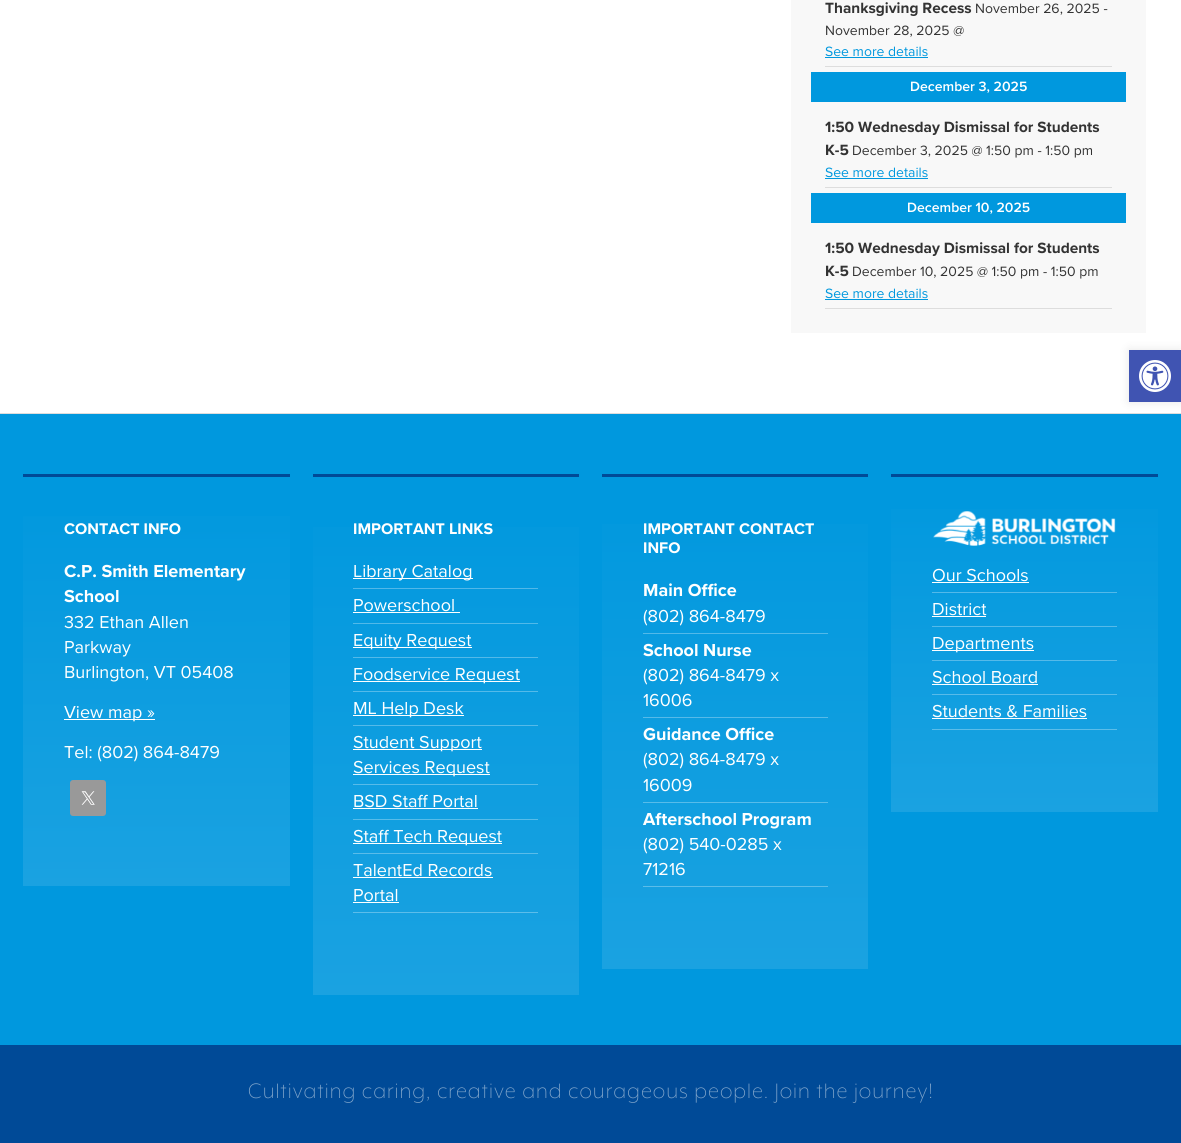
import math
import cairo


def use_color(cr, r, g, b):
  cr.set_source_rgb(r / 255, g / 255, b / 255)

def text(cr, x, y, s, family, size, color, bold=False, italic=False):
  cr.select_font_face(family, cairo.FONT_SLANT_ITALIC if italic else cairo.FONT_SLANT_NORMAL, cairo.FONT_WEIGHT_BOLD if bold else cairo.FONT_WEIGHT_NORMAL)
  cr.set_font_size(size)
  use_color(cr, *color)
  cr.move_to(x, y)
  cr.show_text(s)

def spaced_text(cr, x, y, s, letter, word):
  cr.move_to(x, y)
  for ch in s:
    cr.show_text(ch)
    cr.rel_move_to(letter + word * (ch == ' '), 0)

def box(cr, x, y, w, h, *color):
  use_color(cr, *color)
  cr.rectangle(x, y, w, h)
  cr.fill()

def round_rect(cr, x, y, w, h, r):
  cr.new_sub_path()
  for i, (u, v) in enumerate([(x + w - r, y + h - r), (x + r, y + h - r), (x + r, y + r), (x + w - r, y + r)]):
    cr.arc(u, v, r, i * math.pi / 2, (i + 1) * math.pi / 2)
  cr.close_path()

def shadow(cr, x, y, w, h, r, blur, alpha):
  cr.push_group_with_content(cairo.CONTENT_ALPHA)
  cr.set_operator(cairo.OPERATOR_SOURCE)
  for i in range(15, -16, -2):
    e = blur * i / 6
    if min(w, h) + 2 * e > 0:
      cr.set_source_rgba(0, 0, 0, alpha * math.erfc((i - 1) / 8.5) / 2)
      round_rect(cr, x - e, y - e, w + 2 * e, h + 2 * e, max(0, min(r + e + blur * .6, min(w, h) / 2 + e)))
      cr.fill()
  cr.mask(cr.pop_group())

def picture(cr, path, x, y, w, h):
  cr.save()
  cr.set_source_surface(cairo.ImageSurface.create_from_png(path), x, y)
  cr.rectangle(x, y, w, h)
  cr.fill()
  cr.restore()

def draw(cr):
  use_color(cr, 0, 74, 151)
  cr.paint()
  box(cr, 0, 0, 1181, 413, 255, 255, 255)
  box(cr, 791, 0, 355, 333, 248, 248, 248)
  box(cr, 825, 66, 287, 1, 221, 221, 221)
  box(cr, 825, 57, 103, 1, 0, 152, 222)
  box(cr, 811, 72, 315, 30, 0, 152, 222)
  box(cr, 825, 187, 287, 1, 221, 221, 221)
  box(cr, 825, 178, 103, 1, 0, 152, 222)
  box(cr, 811, 193, 315, 30, 0, 152, 222)
  box(cr, 825, 308, 287, 1, 221, 221, 221)
  box(cr, 825, 299, 103, 1, 0, 152, 222)
  box(cr, 0, 414, 1181, 631, 0, 152, 222)
  box(cr, 0, 413, 1181, 1, 221, 221, 221)
  use_color(cr, 0, 0, 0)
  shadow(cr, 1129, 350, 52, 52, 0, 5, 0.1)
  box(cr, 1129, 350, 52, 52, 64, 84, 178)
  picture(cr, "img_01.png", 1139, 360, 32, 32)
  gradient = cairo.LinearGradient(156, 477, 157, 886)
  gradient.add_color_stop_rgba(0, 0, 0.596, 0.871, 1)
  gradient.add_color_stop_rgba(1, 0.102, 0.635, 0.882, 1)
  cr.set_source(gradient)
  cr.rectangle(23, 516, 267, 370)
  cr.fill()
  box(cr, 23, 474, 267, 3, 0, 74, 151)
  box(cr, 64, 719, 91, 1, 255, 255, 255)
  use_color(cr, 153, 153, 153)
  round_rect(cr, 70, 780, 36, 36, 3)
  cr.fill()
  picture(cr, "img_02.png", 81, 791, 14, 14)
  gradient = cairo.LinearGradient(446, 477, 446, 995)
  gradient.add_color_stop_rgba(0, 0, 0.596, 0.871, 1)
  gradient.add_color_stop_rgba(1, 0.102, 0.635, 0.882, 1)
  cr.set_source(gradient)
  cr.rectangle(313, 527, 266, 468)
  cr.fill()
  box(cr, 313, 474, 266, 3, 0, 74, 151)
  box(cr, 353, 588, 185, 1, 81, 184, 233)
  box(cr, 353, 578, 120, 1, 255, 255, 255)
  box(cr, 353, 623, 185, 1, 81, 185, 233)
  box(cr, 353, 612, 107, 1, 255, 255, 255)
  box(cr, 353, 657, 185, 1, 83, 185, 233)
  box(cr, 353, 647, 119, 1, 255, 255, 255)
  box(cr, 353, 691, 185, 1, 84, 186, 233)
  box(cr, 353, 681, 167, 1, 255, 255, 255)
  box(cr, 353, 725, 185, 1, 85, 186, 233)
  box(cr, 353, 715, 111, 1, 255, 255, 255)
  box(cr, 353, 784, 185, 1, 87, 187, 233)
  box(cr, 353, 749, 129, 1, 255, 255, 255)
  box(cr, 353, 774, 137, 1, 255, 255, 255)
  box(cr, 353, 819, 185, 1, 88, 188, 233)
  box(cr, 353, 808, 125, 1, 255, 255, 255)
  box(cr, 353, 853, 185, 1, 90, 188, 233)
  box(cr, 353, 843, 149, 1, 255, 255, 255)
  box(cr, 353, 912, 185, 1, 92, 189, 234)
  box(cr, 353, 877, 140, 1, 255, 255, 255)
  box(cr, 353, 902, 46, 1, 255, 255, 255)
  gradient = cairo.LinearGradient(735, 477, 735, 969)
  gradient.add_color_stop_rgba(0, 0, 0.596, 0.871, 1)
  gradient.add_color_stop_rgba(1, 0.102, 0.635, 0.882, 1)
  cr.set_source(gradient)
  cr.rectangle(602, 524, 266, 445)
  cr.fill()
  box(cr, 602, 474, 266, 3, 0, 74, 151)
  box(cr, 643, 633, 185, 1, 82, 185, 233)
  box(cr, 643, 717, 185, 1, 86, 186, 233)
  box(cr, 643, 802, 185, 1, 88, 188, 233)
  box(cr, 643, 886, 185, 1, 92, 189, 233)
  gradient = cairo.LinearGradient(1025, 477, 1025, 812)
  gradient.add_color_stop_rgba(0, 0, 0.596, 0.871, 1)
  gradient.add_color_stop_rgba(1, 0.102, 0.635, 0.882, 1)
  cr.set_source(gradient)
  cr.rectangle(891, 509, 267, 303)
  cr.fill()
  box(cr, 891, 474, 267, 3, 0, 74, 151)
  picture(cr, "img_03.png", 933, 511, 183, 35)
  box(cr, 932, 592, 185, 1, 83, 185, 233)
  box(cr, 932, 582, 97, 1, 255, 255, 255)
  box(cr, 932, 626, 185, 1, 85, 186, 233)
  box(cr, 932, 616, 54, 1, 255, 255, 255)
  box(cr, 932, 660, 185, 1, 86, 186, 233)
  box(cr, 932, 650, 102, 1, 255, 255, 255)
  box(cr, 932, 694, 185, 1, 88, 187, 233)
  box(cr, 932, 684, 106, 1, 255, 255, 255)
  box(cr, 932, 729, 185, 1, 91, 189, 233)
  box(cr, 932, 718, 155, 1, 255, 255, 255)
  text(cr, 825, 13, "Thanksgiving Recess", "Proxima Nova", 15.4, (51, 51, 51), bold=True)
  text(cr, 975, 13, "November 26, 2025 -", "Proxima Nova", 14, (51, 51, 51))
  text(cr, 825, 35, "November 28, 2025 @", "Proxima Nova", 14, (51, 51, 51))
  text(cr, 825, 56, "See more details", "Proxima Nova", 14, (0, 152, 222))
  text(cr, 910, 91, "December 3, 2025", "Proxima Nova SemiBold", 14, (255, 255, 255))
  text(cr, 825, 132, "1:50 Wednesday Dismissal for Students", "Proxima Nova", 15.4, (51, 51, 51), bold=True)
  text(cr, 825, 155, "K-5", "Proxima Nova", 15.4, (51, 51, 51), bold=True)
  text(cr, 852, 155, "December 3, 2025 @ 1:50 pm - 1:50 pm", "Proxima Nova", 14, (51, 51, 51))
  text(cr, 825, 177, "See more details", "Proxima Nova", 14, (0, 152, 222))
  text(cr, 907, 212, "December 10, 2025", "Proxima Nova SemiBold", 14, (255, 255, 255))
  text(cr, 825, 253, "1:50 Wednesday Dismissal for Students", "Proxima Nova", 15.4, (51, 51, 51), bold=True)
  text(cr, 825, 276, "K-5", "Proxima Nova", 15.4, (51, 51, 51), bold=True)
  text(cr, 852, 276, "December 10, 2025 @ 1:50 pm - 1:50 pm", "Proxima Nova", 14, (51, 51, 51))
  text(cr, 825, 298, "See more details", "Proxima Nova", 14, (0, 152, 222))
  text(cr, 64, 534, "CONTACT INFO", "Proxima Nova", 16, (255, 255, 255), bold=True)
  text(cr, 64, 577, "C.P. Smith Elementary", "Proxima Nova", 18, (255, 255, 255), bold=True)
  text(cr, 64, 602, "School", "Proxima Nova", 18, (255, 255, 255), bold=True)
  text(cr, 64, 628, "332 Ethan Allen", "Proxima Nova", 18, (255, 255, 255))
  text(cr, 64, 653, "Parkway", "Proxima Nova", 18, (255, 255, 255))
  text(cr, 64, 678, "Burlington, VT 05408", "Proxima Nova", 18, (255, 255, 255))
  text(cr, 64, 718, "View map »", "Proxima Nova", 18, (255, 255, 255))
  text(cr, 64, 758, "Tel: (802) 864-8479", "Proxima Nova", 18, (255, 255, 255))
  text(cr, 353, 534, "IMPORTANT LINKS", "Proxima Nova", 16, (255, 255, 255), bold=True)
  text(cr, 353, 577, "Library Catalog", "Proxima Nova", 18, (255, 255, 255))
  text(cr, 353, 611, "Powerschool", "Proxima Nova", 18, (255, 255, 255))
  text(cr, 353, 646, "Equity Request", "Proxima Nova", 18, (255, 255, 255))
  text(cr, 353, 680, "Foodservice Request", "Proxima Nova", 18, (255, 255, 255))
  text(cr, 353, 714, "ML Help Desk", "Proxima Nova", 18, (255, 255, 255))
  text(cr, 353, 748, "Student Support", "Proxima Nova", 18, (255, 255, 255))
  text(cr, 353, 773, "Services Request", "Proxima Nova", 18, (255, 255, 255))
  text(cr, 353, 807, "BSD Staff Portal", "Proxima Nova", 18, (255, 255, 255))
  text(cr, 353, 842, "Staff Tech Request", "Proxima Nova", 18, (255, 255, 255))
  text(cr, 353, 876, "TalentEd Records", "Proxima Nova", 18, (255, 255, 255))
  text(cr, 353, 901, "Portal", "Proxima Nova", 18, (255, 255, 255))
  text(cr, 643, 534, "IMPORTANT CONTACT", "Proxima Nova", 16, (255, 255, 255), bold=True)
  text(cr, 643, 553, "INFO", "Proxima Nova", 16, (255, 255, 255), bold=True)
  text(cr, 643, 596, "Main Office", "Proxima Nova", 18, (255, 255, 255), bold=True)
  text(cr, 643, 622, "(802) 864-8479", "Proxima Nova", 18, (255, 255, 255))
  text(cr, 643, 656, "School Nurse", "Proxima Nova", 18, (255, 255, 255), bold=True)
  text(cr, 643, 681, "(802) 864-8479 x", "Proxima Nova", 18, (255, 255, 255))
  text(cr, 643, 706, "16006", "Proxima Nova", 18, (255, 255, 255))
  text(cr, 643, 740, "Guidance Office", "Proxima Nova", 18, (255, 255, 255), bold=True)
  text(cr, 643, 765, "(802) 864-8479 x", "Proxima Nova", 18, (255, 255, 255))
  text(cr, 643, 791, "16009", "Proxima Nova", 18, (255, 255, 255))
  text(cr, 643, 825, "Afterschool Program", "Proxima Nova", 18, (255, 255, 255), bold=True)
  text(cr, 643, 850, "(802) 540-0285 x", "Proxima Nova", 18, (255, 255, 255))
  text(cr, 643, 875, "71216", "Proxima Nova", 18, (255, 255, 255))
  text(cr, 932, 581, "Our Schools", "Proxima Nova", 18, (255, 255, 255))
  text(cr, 932, 615, "District", "Proxima Nova", 18, (255, 255, 255))
  text(cr, 932, 649, "Departments", "Proxima Nova", 18, (255, 255, 255))
  text(cr, 932, 683, "School Board", "Proxima Nova", 18, (255, 255, 255))
  text(cr, 932, 717, "Students & Families", "Proxima Nova", 18, (255, 255, 255))
  cr.select_font_face("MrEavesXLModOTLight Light")
  cr.set_font_size(24)
  use_color(cr, 128, 165, 203)
  spaced_text(cr, 248, 1098, "Cultivating caring, creative and courageous people. Join the journey!", 1, 0)


surface = cairo.ImageSurface(cairo.FORMAT_RGB24, 1181, 1143)
cr = cairo.Context(surface)
options = cairo.FontOptions()
options.set_hint_metrics(cairo.HINT_METRICS_OFF)
options.set_hint_style(cairo.HINT_STYLE_NONE)
cr.set_font_options(options)
cr.set_miter_limit(4)
draw(cr)
surface.write_to_png("out.png")
